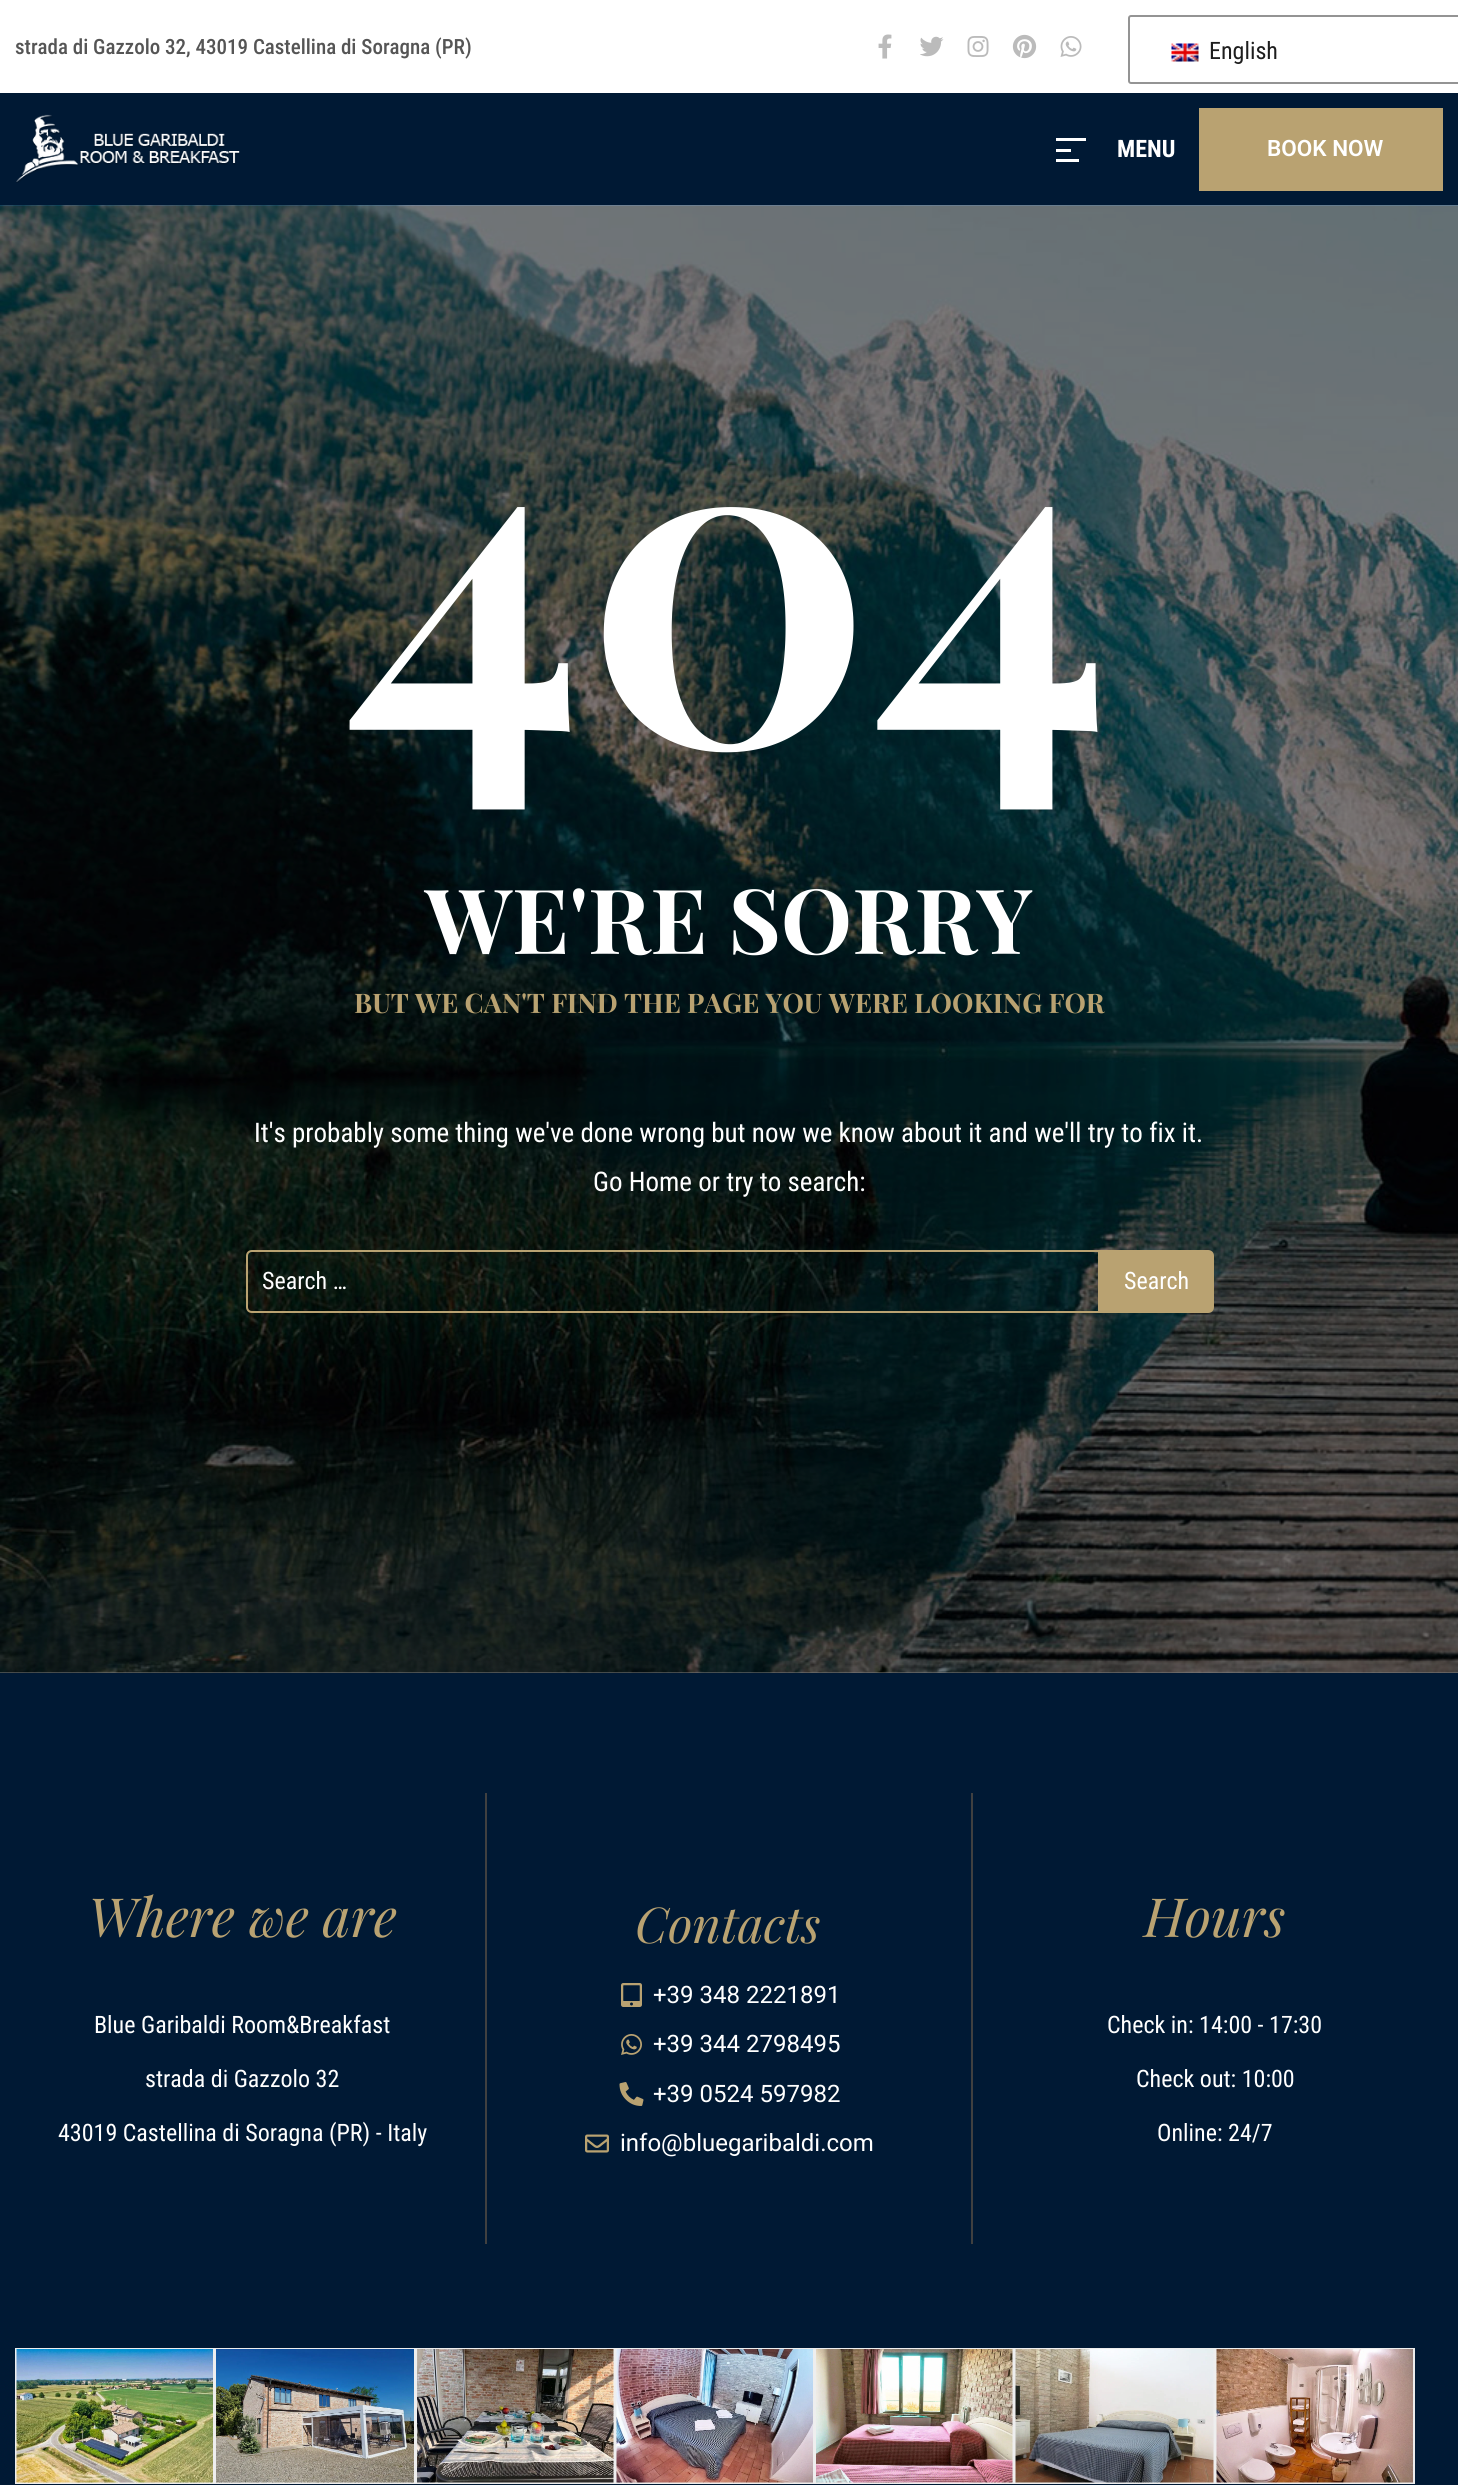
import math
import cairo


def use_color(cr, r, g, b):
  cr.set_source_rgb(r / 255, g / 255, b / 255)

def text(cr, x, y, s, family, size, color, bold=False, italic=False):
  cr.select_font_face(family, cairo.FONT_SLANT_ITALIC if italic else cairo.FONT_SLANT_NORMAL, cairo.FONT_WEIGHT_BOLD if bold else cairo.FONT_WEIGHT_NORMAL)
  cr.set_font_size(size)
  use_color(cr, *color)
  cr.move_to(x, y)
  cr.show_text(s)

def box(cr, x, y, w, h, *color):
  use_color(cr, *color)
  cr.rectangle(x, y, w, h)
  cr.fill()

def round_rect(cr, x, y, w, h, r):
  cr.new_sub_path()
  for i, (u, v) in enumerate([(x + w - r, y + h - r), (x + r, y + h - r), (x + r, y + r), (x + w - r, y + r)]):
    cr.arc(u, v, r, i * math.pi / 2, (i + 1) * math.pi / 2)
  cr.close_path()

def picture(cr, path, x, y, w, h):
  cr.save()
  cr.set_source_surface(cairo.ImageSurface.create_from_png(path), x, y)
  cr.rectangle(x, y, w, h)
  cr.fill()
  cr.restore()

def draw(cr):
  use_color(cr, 255, 255, 255)
  cr.paint()
  box(cr, 0, 1672, 1458, 1, 128, 128, 128)
  picture(cr, "img_01.png", 878, 34, 14, 25)
  picture(cr, "img_02.png", 920, 36, 24, 21)
  picture(cr, "img_03.png", 967, 36, 22, 21)
  picture(cr, "img_04.png", 1012, 34, 25, 25)
  picture(cr, "img_05.png", 1060, 36, 22, 21)
  round_rect(cr, 1129, 16, 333, 67, 2)
  use_color(cr, 148, 148, 148)
  cr.stroke()
  picture(cr, "img_06.png", 1171, 43, 28, 19)
  box(cr, 0, 93, 1458, 113, 0, 25, 52)
  picture(cr, "img_07.png", 16, 114, 224, 69)
  box(cr, 1056, 138, 30, 3, 255, 255, 255)
  box(cr, 1056, 149, 15, 3, 255, 255, 255)
  box(cr, 1056, 159, 23, 3, 255, 255, 255)
  box(cr, 1199, 108, 244, 83, 185, 162, 113)
  picture(cr, "img_08.png", 0, 205, 1458, 1468)
  cr.new_path()
  cr.move_to(252, 1251)
  cr.line_to(1099, 1251)
  cr.line_to(1099, 1312)
  cr.line_to(252, 1312)
  cr.curve_to(249, 1312, 247, 1310, 247, 1307)
  cr.line_to(247, 1256)
  cr.curve_to(247, 1253, 249, 1251, 252, 1251)
  cr.close_path()
  cr.stroke()
  cr.new_path()
  cr.move_to(1101, 1251)
  cr.line_to(1208, 1251)
  cr.curve_to(1211, 1251, 1213, 1253, 1213, 1256)
  cr.line_to(1213, 1307)
  cr.curve_to(1213, 1310, 1211, 1312, 1208, 1312)
  cr.line_to(1101, 1312)
  cr.close_path()
  cr.fill_preserve()
  cr.stroke()
  box(cr, 0, 1673, 1458, 812, 0, 25, 52)
  box(cr, 485, 1793, 2, 451, 64, 64, 64)
  box(cr, 971, 1793, 2, 451, 64, 64, 64)
  picture(cr, "img_09.png", 621, 1983, 21, 24)
  picture(cr, "img_10.png", 621, 2034, 21, 21)
  picture(cr, "img_11.png", 619, 2082, 25, 24)
  picture(cr, "img_12.png", 585, 2134, 24, 19)
  cr.rectangle(16, 2349, 198, 134)
  use_color(cr, 238, 238, 238)
  cr.stroke()
  picture(cr, "img_13.png", 16, 2349, 197, 134)
  cr.rectangle(216, 2349, 199, 134)
  cr.stroke()
  picture(cr, "img_14.png", 216, 2349, 198, 134)
  cr.rectangle(417, 2349, 197, 134)
  cr.stroke()
  picture(cr, "img_15.png", 417, 2349, 197, 134)
  cr.rectangle(616, 2349, 198, 134)
  cr.stroke()
  picture(cr, "img_16.png", 616, 2349, 197, 134)
  cr.rectangle(816, 2349, 197, 134)
  cr.stroke()
  picture(cr, "img_17.png", 816, 2349, 197, 134)
  cr.rectangle(1015, 2349, 199, 134)
  cr.stroke()
  picture(cr, "img_18.png", 1015, 2349, 199, 134)
  cr.rectangle(1216, 2349, 198, 134)
  cr.stroke()
  picture(cr, "img_19.png", 1216, 2349, 197, 134)
  text(cr, 15, 54, "strada di Gazzolo 32, 43019 Castellina di Soragna (PR)", "Roboto Condensed Medium", 21, (85, 85, 85))
  text(cr, 1209, 59, "English", "Roboto Condensed", 24, (30, 30, 30))
  text(cr, 1117, 157, "MENU", "Roboto Condensed", 24, (255, 255, 255), bold=True)
  text(cr, 1267, 156, "BOOK NOW", "Roboto SemiBold", 22.5, (255, 255, 255))
  text(cr, 346, 746, "404", "Playfair Display", 450, (255, 255, 255), bold=True)
  text(cr, 425, 954, "WE'RE SORRY", "Playfair Display", 90, (255, 255, 255), bold=True)
  text(cr, 354, 1013, "BUT WE CAN'T FIND THE PAGE YOU WERE LOOKING FOR", "Playfair Display", 27, (185, 162, 113), bold=True)
  text(cr, 254, 1142, "It's probably some thing we've done wrong but now we know about it and we'll try to fix it.", "Roboto Condensed", 27, (255, 255, 255))
  text(cr, 593, 1191, "Go Home or try to search:", "Roboto Condensed", 27, (255, 255, 255))
  text(cr, 262, 1289, "Search …", "Roboto Condensed", 24, (255, 255, 255))
  text(cr, 1124, 1289, "Search", "Roboto Condensed", 24, (255, 255, 255))
  text(cr, 88, 1937, "Where we are", "Playfair Display", 54, (185, 162, 113), italic=True)
  text(cr, 94, 2033, "Blue Garibaldi Room&Breakfast", "Roboto Condensed", 24, (255, 255, 255))
  text(cr, 145, 2087, "strada di Gazzolo 32", "Roboto Condensed", 24, (255, 255, 255))
  text(cr, 58, 2141, "43019 Castellina di Soragna (PR) - Italy", "Roboto Condensed", 24, (255, 255, 255))
  text(cr, 635, 1943, "Contacts", "Playfair Display", 49.5, (185, 162, 113), italic=True)
  text(cr, 653, 2003, "+39 348 2221891", "Roboto", 24, (255, 255, 255))
  text(cr, 653, 2052, "+39 344 2798495", "Roboto", 24, (255, 255, 255))
  text(cr, 653, 2102, "+39 0524 597982", "Roboto", 24, (255, 255, 255))
  text(cr, 620, 2151, "info@bluegaribaldi.com", "Roboto", 24, (255, 255, 255))
  text(cr, 1144, 1937, "Hours", "Playfair Display", 54, (185, 162, 113), italic=True)
  text(cr, 1107, 2033, "Check in: 14:00 - 17:30", "Roboto Condensed", 24, (255, 255, 255))
  text(cr, 1136, 2087, "Check out: 10:00", "Roboto Condensed", 24, (255, 255, 255))
  text(cr, 1157, 2141, "Online: 24/7", "Roboto Condensed", 24, (255, 255, 255))


surface = cairo.ImageSurface(cairo.FORMAT_RGB24, 1458, 2485)
cr = cairo.Context(surface)
options = cairo.FontOptions()
options.set_hint_metrics(cairo.HINT_METRICS_OFF)
options.set_hint_style(cairo.HINT_STYLE_NONE)
cr.set_font_options(options)
cr.set_miter_limit(4)
draw(cr)
surface.write_to_png("out.png")
